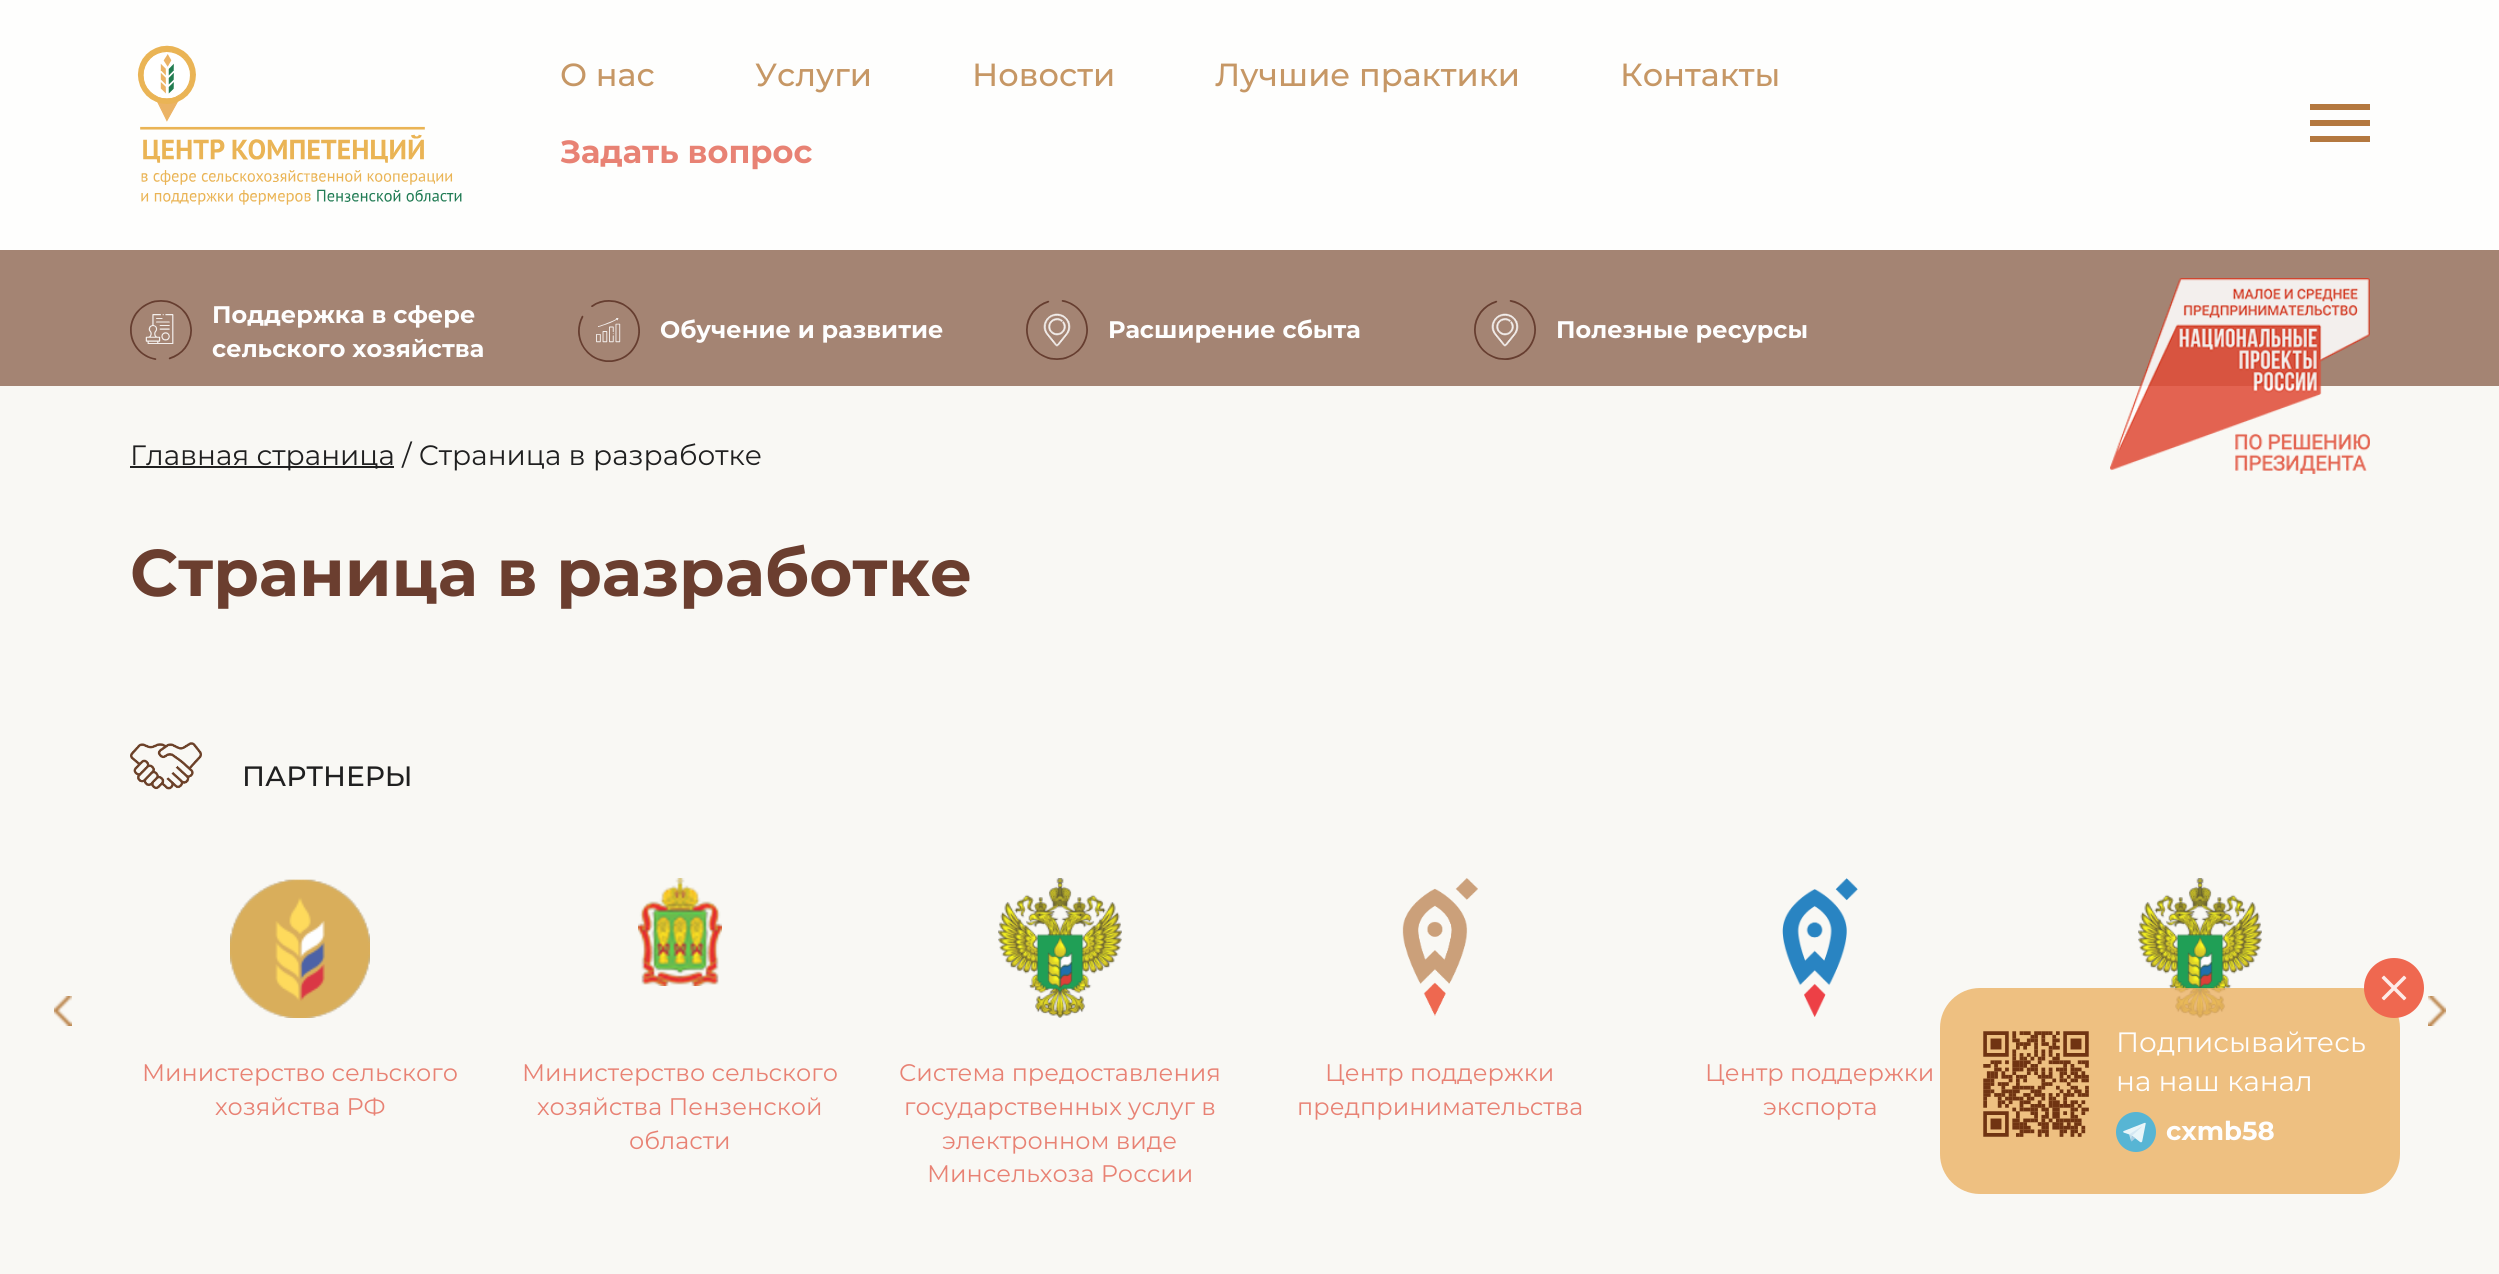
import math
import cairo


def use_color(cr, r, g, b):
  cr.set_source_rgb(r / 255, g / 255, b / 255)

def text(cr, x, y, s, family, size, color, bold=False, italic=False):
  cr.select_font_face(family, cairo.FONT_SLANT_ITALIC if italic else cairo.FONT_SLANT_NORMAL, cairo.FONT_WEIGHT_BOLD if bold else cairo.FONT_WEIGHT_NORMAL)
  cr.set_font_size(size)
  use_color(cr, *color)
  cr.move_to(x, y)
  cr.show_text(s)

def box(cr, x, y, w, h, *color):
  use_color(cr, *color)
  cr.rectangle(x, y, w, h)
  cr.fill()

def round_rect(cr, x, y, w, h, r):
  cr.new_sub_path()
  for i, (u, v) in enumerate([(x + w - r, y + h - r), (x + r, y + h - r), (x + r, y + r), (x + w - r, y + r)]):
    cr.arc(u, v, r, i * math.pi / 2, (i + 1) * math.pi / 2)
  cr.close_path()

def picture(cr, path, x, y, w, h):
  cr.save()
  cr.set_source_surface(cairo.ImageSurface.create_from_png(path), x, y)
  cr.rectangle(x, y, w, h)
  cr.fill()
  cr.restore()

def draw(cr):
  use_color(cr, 249, 248, 244)
  cr.paint()
  box(cr, 0, 0, 2499, 250, 254, 254, 253)
  picture(cr, "img_01.png", 137, 45, 325, 160)
  box(cr, 2310, 120, 60, 6, 180, 120, 63)
  box(cr, 2310, 104, 60, 6, 180, 120, 63)
  box(cr, 2310, 136, 60, 6, 180, 120, 63)
  box(cr, 0, 250, 2499, 136, 164, 132, 115)
  picture(cr, "img_02.png", 130, 300, 62, 60)
  picture(cr, "img_03.png", 578, 300, 62, 62)
  picture(cr, "img_04.png", 1026, 300, 62, 60)
  picture(cr, "img_05.png", 1474, 300, 62, 60)
  picture(cr, "img_06.png", 2110, 278, 260, 196)
  box(cr, 130, 466, 264, 2, 32, 32, 32)
  picture(cr, "img_07.png", 130, 742, 72, 48)
  picture(cr, "img_08.png", 54, 996, 18, 30)
  picture(cr, "img_09.png", 2428, 996, 18, 30)
  picture(cr, "img_10.png", 2138, 878, 124, 140)
  picture(cr, "img_11.png", 230, 879, 140, 139)
  picture(cr, "img_12.png", 638, 878, 84, 108)
  picture(cr, "img_13.png", 998, 878, 124, 140)
  picture(cr, "img_14.png", 1402, 878, 76, 138)
  picture(cr, "img_15.png", 1782, 878, 76, 139)
  cr.set_source_rgba(0.922, 0.698, 0.392, 0.8)
  round_rect(cr, 1940, 988, 460, 206, 40)
  cr.fill()
  use_color(cr, 239, 104, 80)
  cr.arc(2394, 988, 30, 0, 2 * math.pi)
  cr.fill()
  picture(cr, "img_16.png", 2381, 975, 26, 26)
  picture(cr, "img_17.png", 1983, 1031, 106, 106)
  picture(cr, "img_18.png", 2116, 1112, 40, 40)
  text(cr, 560, 86, "О нас", "Montserrat Medium", 32, (198, 151, 101))
  text(cr, 755, 86, "Услуги", "Montserrat Medium", 32, (198, 151, 101))
  text(cr, 972, 86, "Новости", "Montserrat Medium", 32, (198, 151, 101))
  text(cr, 1215, 86, "Лучшие практики", "Montserrat Medium", 32, (198, 151, 101))
  text(cr, 1620, 86, "Контакты", "Montserrat Medium", 32, (198, 151, 101))
  text(cr, 560, 163, "Задать вопрос", "Montserrat", 32, (232, 130, 116), bold=True)
  text(cr, 212, 323, "Поддержка в сфере", "Montserrat", 24, (254, 254, 254), bold=True)
  text(cr, 212, 357, "сельского хозяйства", "Montserrat", 24, (254, 254, 254), bold=True)
  text(cr, 660, 338, "Обучение и развитие", "Montserrat", 24, (254, 254, 254), bold=True)
  text(cr, 1108, 338, "Расширение сбыта", "Montserrat", 24, (254, 254, 254), bold=True)
  text(cr, 1556, 338, "Полезные ресурсы", "Montserrat", 24, (254, 254, 254), bold=True)
  text(cr, 130, 465, "Главная страница / Страница в разработке", "Montserrat", 28, (32, 32, 32))
  text(cr, 130, 596, "Страница в разработке", "Montserrat", 66, (107, 62, 47), bold=True)
  text(cr, 242, 786, "ПАРТНЕРЫ", "Montserrat Medium", 28, (32, 32, 32))
  text(cr, 142, 1081, "Министерство сельского", "Montserrat", 24, (232, 130, 116))
  text(cr, 215, 1115, "хозяйства РФ", "Montserrat", 24, (232, 130, 116))
  text(cr, 522, 1081, "Министерство сельского", "Montserrat", 24, (232, 130, 116))
  text(cr, 537, 1115, "хозяйства Пензенской", "Montserrat", 24, (232, 130, 116))
  text(cr, 629, 1149, "области", "Montserrat", 24, (232, 130, 116))
  text(cr, 899, 1081, "Система предоставления", "Montserrat", 24, (232, 130, 116))
  text(cr, 904, 1115, "государственных услуг в", "Montserrat", 24, (232, 130, 116))
  text(cr, 942, 1149, "электронном виде", "Montserrat", 24, (232, 130, 116))
  text(cr, 927, 1182, "Минсельхоза России", "Montserrat", 24, (232, 130, 116))
  text(cr, 1325, 1081, "Центр поддержки", "Montserrat", 24, (232, 130, 116))
  text(cr, 1297, 1115, "предпринимательства", "Montserrat", 24, (232, 130, 116))
  text(cr, 1705, 1081, "Центр поддержки", "Montserrat", 24, (232, 130, 116))
  text(cr, 1763, 1115, "экспорта", "Montserrat", 24, (232, 130, 116))
  text(cr, 2116, 1052, "Подписывайтесь", "Montserrat", 28, (254, 254, 254))
  text(cr, 2116, 1091, "на наш канал", "Montserrat", 28, (254, 254, 254))
  text(cr, 2166, 1140, "cxmb58", "Montserrat", 26, (254, 254, 254), bold=True)


surface = cairo.ImageSurface(cairo.FORMAT_RGB24, 2499, 1274)
cr = cairo.Context(surface)
options = cairo.FontOptions()
options.set_hint_metrics(cairo.HINT_METRICS_OFF)
options.set_hint_style(cairo.HINT_STYLE_NONE)
cr.set_font_options(options)
cr.set_miter_limit(4)
draw(cr)
surface.write_to_png("out.png")
